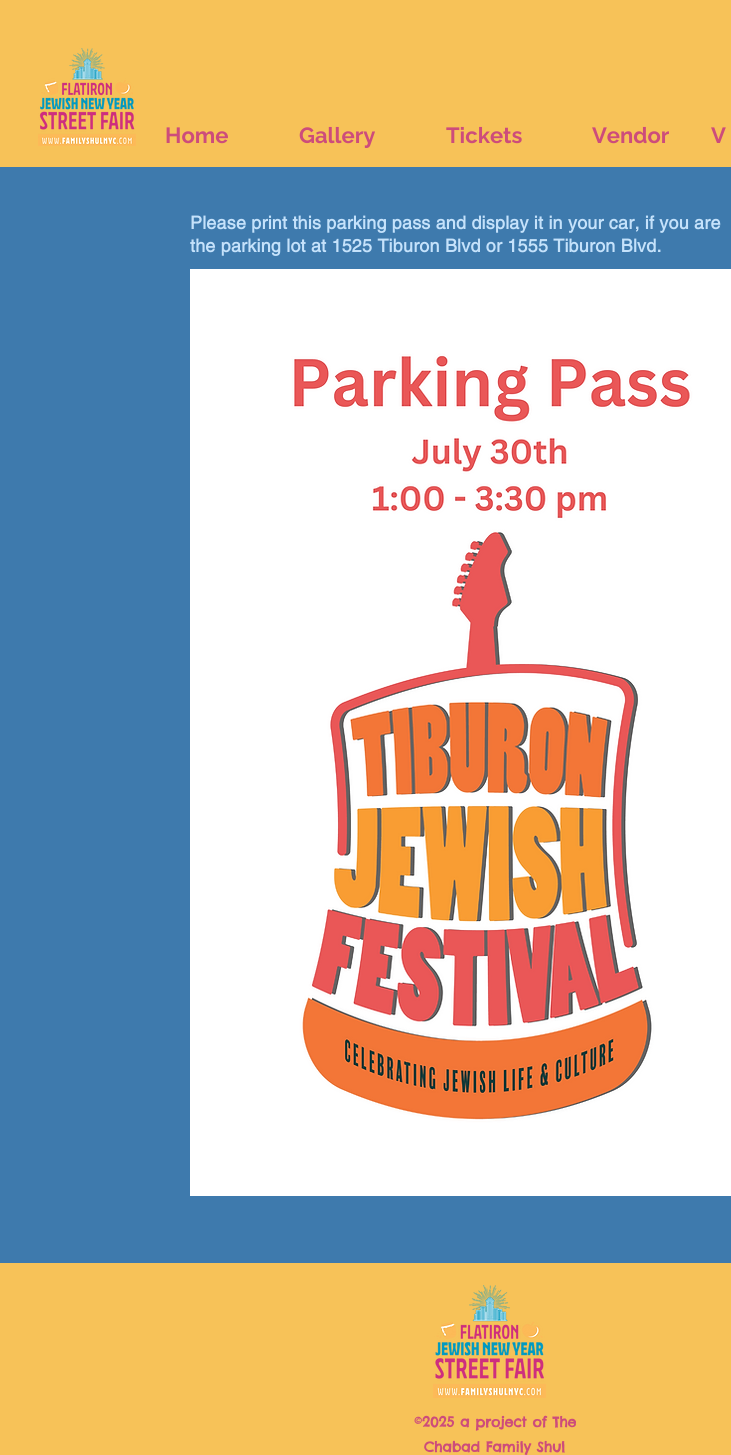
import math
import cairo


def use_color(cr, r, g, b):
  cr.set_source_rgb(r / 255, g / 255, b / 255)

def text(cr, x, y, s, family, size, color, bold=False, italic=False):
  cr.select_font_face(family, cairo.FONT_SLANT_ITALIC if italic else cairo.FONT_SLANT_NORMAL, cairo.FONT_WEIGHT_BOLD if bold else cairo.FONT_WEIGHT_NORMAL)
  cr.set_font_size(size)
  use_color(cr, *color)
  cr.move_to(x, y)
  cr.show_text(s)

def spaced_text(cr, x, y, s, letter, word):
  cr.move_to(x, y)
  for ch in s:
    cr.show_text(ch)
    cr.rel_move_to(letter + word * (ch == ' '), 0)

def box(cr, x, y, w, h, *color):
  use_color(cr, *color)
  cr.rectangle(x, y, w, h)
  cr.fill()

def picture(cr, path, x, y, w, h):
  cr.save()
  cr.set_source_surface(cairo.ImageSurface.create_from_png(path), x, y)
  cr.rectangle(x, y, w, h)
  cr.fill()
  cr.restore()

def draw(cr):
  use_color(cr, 62, 122, 173)
  cr.paint()
  box(cr, 0, 0, 731, 167, 247, 194, 88)
  picture(cr, "img_01.png", 38, 48, 98, 98)
  picture(cr, "img_02.png", 190, 269, 541, 927)
  box(cr, 0, 1263, 731, 192, 247, 194, 88)
  picture(cr, "img_03.png", 433, 1285, 113, 113)
  text(cr, 165, 143, "Home", "Raleway", 22, (205, 76, 123), bold=True)
  text(cr, 299, 143, "Gallery", "Raleway", 22, (205, 76, 123), bold=True)
  text(cr, 446, 143, "Tickets", "Raleway", 22, (205, 76, 123), bold=True)
  text(cr, 592, 143, "Vendor", "Raleway", 22, (205, 76, 123), bold=True)
  text(cr, 711, 143, "V", "Raleway", 22, (205, 76, 123), bold=True)
  cr.select_font_face("helvetica", cairo.FONT_SLANT_NORMAL, cairo.FONT_WEIGHT_BOLD)
  cr.set_font_size(18)
  use_color(cr, 197, 226, 251)
  spaced_text(cr, 190, 229, "Please print this parking pass and display it in your car, if you are", 0.18, 0)
  spaced_text(cr, 190, 252, "the parking lot at 1525 Tiburon Blvd or 1555 Tiburon Blvd.", 0.18, 0)
  text(cr, 414, 1427, "©2025 a project of The", "Chelsea Market", 14, (205, 76, 123), bold=True)
  text(cr, 424, 1452, "Chabad Family Shul", "Chelsea Market", 14, (205, 76, 123), bold=True)


surface = cairo.ImageSurface(cairo.FORMAT_RGB24, 731, 1455)
cr = cairo.Context(surface)
options = cairo.FontOptions()
options.set_hint_metrics(cairo.HINT_METRICS_OFF)
options.set_hint_style(cairo.HINT_STYLE_NONE)
cr.set_font_options(options)
cr.set_miter_limit(4)
draw(cr)
surface.write_to_png("out.png")
